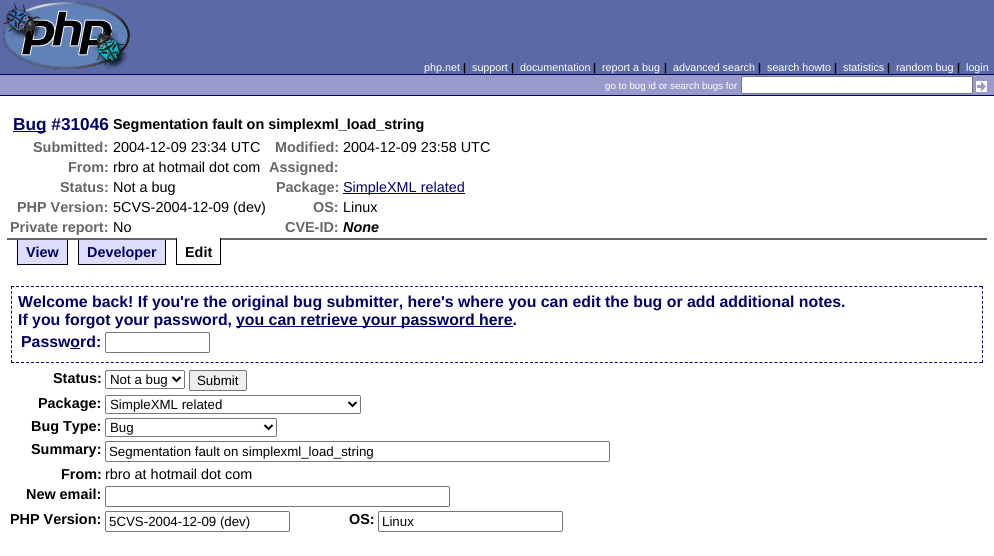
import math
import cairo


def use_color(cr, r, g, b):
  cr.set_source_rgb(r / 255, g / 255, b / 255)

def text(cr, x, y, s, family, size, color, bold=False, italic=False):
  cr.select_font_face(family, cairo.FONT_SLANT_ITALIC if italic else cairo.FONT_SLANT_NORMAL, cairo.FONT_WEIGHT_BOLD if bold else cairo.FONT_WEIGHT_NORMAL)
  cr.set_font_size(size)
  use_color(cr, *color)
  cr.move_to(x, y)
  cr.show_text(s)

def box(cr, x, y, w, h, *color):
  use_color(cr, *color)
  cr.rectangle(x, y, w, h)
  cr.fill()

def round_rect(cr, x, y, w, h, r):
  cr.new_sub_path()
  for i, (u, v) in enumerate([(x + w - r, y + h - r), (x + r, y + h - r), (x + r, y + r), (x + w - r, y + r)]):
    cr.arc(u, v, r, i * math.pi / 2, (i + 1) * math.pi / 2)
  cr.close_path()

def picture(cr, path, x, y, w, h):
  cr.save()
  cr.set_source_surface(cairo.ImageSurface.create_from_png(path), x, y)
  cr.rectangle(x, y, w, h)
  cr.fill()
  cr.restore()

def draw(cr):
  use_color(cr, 255, 255, 255)
  cr.paint()
  box(cr, 0, 0, 994, 74, 91, 105, 166)
  picture(cr, "img_01.png", 3, 2, 127, 67)
  box(cr, 0, 75, 994, 20, 153, 153, 204)
  box(cr, 0, 74, 994, 1, 0, 0, 102)
  box(cr, 0, 95, 994, 1, 0, 0, 102)
  use_color(cr, 255, 255, 255)
  round_rect(cr, 741.5, 76.5, 231, 17, 1.5)
  cr.fill_preserve()
  use_color(cr, 118, 118, 118)
  cr.set_line_width(1)
  cr.stroke()
  picture(cr, "img_02.png", 976, 81, 11, 11)
  box(cr, 7, 238, 980, 2, 102, 102, 102)
  box(cr, 13, 131, 33, 1, 0, 0, 102)
  box(cr, 343, 193, 122, 1, 0, 0, 102)
  box(cr, 18, 240, 49, 24, 221, 221, 255)
  box(cr, 67, 240, 1, 25, 0, 0, 0)
  box(cr, 17, 264, 51, 1, 0, 0, 0)
  box(cr, 17, 240, 1, 25, 0, 0, 0)
  box(cr, 79, 240, 86, 24, 221, 221, 255)
  box(cr, 165, 240, 1, 25, 0, 0, 0)
  box(cr, 78, 264, 88, 1, 0, 0, 0)
  box(cr, 78, 240, 1, 25, 0, 0, 0)
  box(cr, 177, 238, 43, 2, 255, 255, 255)
  box(cr, 220, 238, 1, 27, 0, 0, 0)
  box(cr, 176, 264, 45, 1, 0, 0, 0)
  box(cr, 176, 238, 1, 27, 0, 0, 0)
  cr.new_path()
  cr.move_to(11, 286.5)
  cr.line_to(983, 286.5)
  use_color(cr, 0, 0, 102)
  cr.set_dash([3, 1.99])
  cr.stroke()
  cr.new_path()
  cr.move_to(982.5, 286)
  cr.line_to(982.5, 363)
  cr.set_dash([3, 1.93])
  cr.stroke()
  cr.new_path()
  cr.move_to(11, 362.5)
  cr.line_to(983, 362.5)
  cr.set_dash([3, 1.99])
  cr.stroke()
  cr.new_path()
  cr.move_to(11.5, 286)
  cr.line_to(11.5, 363)
  cr.set_dash([3, 1.93])
  cr.stroke()
  box(cr, 236, 326, 277, 1, 0, 0, 102)
  box(cr, 70, 348, 10, 1, 0, 0, 102)
  round_rect(cr, 105.5, 332.5, 104, 20, 1.5)
  use_color(cr, 118, 118, 118)
  cr.set_dash([])
  cr.stroke()
  round_rect(cr, 105.5, 370.5, 79, 18, 1.5)
  cr.stroke()
  cr.new_path()
  cr.move_to(172.5, 377)
  cr.line_to(176.5, 381)
  cr.line_to(180.5, 377)
  use_color(cr, 0, 0, 0)
  cr.set_line_width(2)
  cr.stroke()
  use_color(cr, 239, 239, 239)
  round_rect(cr, 189.5, 370.5, 57, 20, 1.5)
  cr.fill_preserve()
  use_color(cr, 118, 118, 118)
  cr.set_line_width(1)
  cr.stroke()
  round_rect(cr, 105.5, 395.5, 255, 18, 1.5)
  cr.stroke()
  cr.new_path()
  cr.move_to(348.5, 402)
  cr.line_to(352.5, 406)
  cr.line_to(356.5, 402)
  use_color(cr, 0, 0, 0)
  cr.set_line_width(2)
  cr.stroke()
  round_rect(cr, 105.5, 418.5, 171, 18, 1.5)
  use_color(cr, 118, 118, 118)
  cr.set_line_width(1)
  cr.stroke()
  cr.new_path()
  cr.move_to(264.5, 425)
  cr.line_to(268.5, 429)
  cr.line_to(272.5, 425)
  use_color(cr, 0, 0, 0)
  cr.set_line_width(2)
  cr.stroke()
  round_rect(cr, 105.5, 441.5, 504, 20, 1.5)
  use_color(cr, 118, 118, 118)
  cr.set_line_width(1)
  cr.stroke()
  round_rect(cr, 105.5, 486.5, 344, 20, 1.5)
  cr.stroke()
  round_rect(cr, 105.5, 511.5, 184, 20, 1.5)
  cr.stroke()
  round_rect(cr, 378.5, 511.5, 184, 20, 1.5)
  cr.stroke()
  text(cr, 424, 71, "php.net", "Liberation Sans", 10.75, (255, 255, 255))
  text(cr, 463, 71, "|", "Liberation Sans", 10.75, (0, 0, 0), bold=True)
  text(cr, 472, 71, "support", "Liberation Sans", 10.75, (255, 255, 255))
  text(cr, 511, 71, "|", "Liberation Sans", 10.75, (0, 0, 0), bold=True)
  text(cr, 520, 71, "documentation", "Liberation Sans", 10.75, (255, 255, 255))
  text(cr, 593, 71, "|", "Liberation Sans", 10.75, (0, 0, 0), bold=True)
  text(cr, 602, 71, "report a bug", "Liberation Sans", 10.75, (255, 255, 255))
  text(cr, 664, 71, "|", "Liberation Sans", 10.75, (0, 0, 0), bold=True)
  text(cr, 673, 71, "advanced search", "Liberation Sans", 10.75, (255, 255, 255))
  text(cr, 758, 71, "|", "Liberation Sans", 10.75, (0, 0, 0), bold=True)
  text(cr, 767, 71, "search howto", "Liberation Sans", 10.75, (255, 255, 255))
  text(cr, 834, 71, "|", "Liberation Sans", 10.75, (0, 0, 0), bold=True)
  text(cr, 843, 71, "statistics", "Liberation Sans", 10.75, (255, 255, 255))
  text(cr, 887, 71, "|", "Liberation Sans", 10.75, (0, 0, 0), bold=True)
  text(cr, 896, 71, "random bug", "Liberation Sans", 10.75, (255, 255, 255))
  text(cr, 957, 71, "|", "Liberation Sans", 10.75, (0, 0, 0), bold=True)
  text(cr, 966, 71, "login", "Liberation Sans", 10.75, (255, 255, 255))
  text(cr, 605, 89, "go to bug id or search bugs for", "Liberation Sans", 9.75, (255, 255, 255))
  text(cr, 13, 130, "Bug #31046", "Liberation Sans", 17.25, (0, 0, 102), bold=True)
  text(cr, 113, 129, "Segmentation fault on simplexml_load_string", "Liberation Sans", 14.4, (0, 0, 0), bold=True)
  text(cr, 33, 152, "Submitted:", "Liberation Sans", 14.4, (102, 102, 102), bold=True)
  text(cr, 113, 152, "2004-12-09 23:34 UTC", "Liberation Sans", 14.4, (0, 0, 0))
  text(cr, 275, 152, "Modified:", "Liberation Sans", 14.4, (102, 102, 102), bold=True)
  text(cr, 343, 152, "2004-12-09 23:58 UTC", "Liberation Sans", 14.4, (0, 0, 0))
  text(cr, 68, 172, "From:", "Liberation Sans", 14.4, (102, 102, 102), bold=True)
  text(cr, 113, 172, "rbro at hotmail dot com", "Liberation Sans", 14.4, (0, 0, 0))
  text(cr, 269, 172, "Assigned:", "Liberation Sans", 14.4, (102, 102, 102), bold=True)
  text(cr, 60, 192, "Status:", "Liberation Sans", 14.4, (102, 102, 102), bold=True)
  text(cr, 113, 192, "Not a bug", "Liberation Sans", 14.4, (0, 0, 0))
  text(cr, 276, 192, "Package:", "Liberation Sans", 14.4, (102, 102, 102), bold=True)
  text(cr, 343, 192, "SimpleXML related", "Liberation Sans", 14.4, (0, 0, 102))
  text(cr, 17, 212, "PHP Version:", "Liberation Sans", 14.4, (102, 102, 102), bold=True)
  text(cr, 113, 212, "5CVS-2004-12-09 (dev)", "Liberation Sans", 14.4, (0, 0, 0))
  text(cr, 313, 212, "OS:", "Liberation Sans", 14.4, (102, 102, 102), bold=True)
  text(cr, 343, 212, "Linux", "Liberation Sans", 14.4, (0, 0, 0))
  text(cr, 10, 232, "Private report:", "Liberation Sans", 14.4, (102, 102, 102), bold=True)
  text(cr, 113, 232, "No", "Liberation Sans", 14.4, (0, 0, 0))
  text(cr, 285, 232, "CVE-ID:", "Liberation Sans", 14.4, (102, 102, 102), bold=True)
  text(cr, 343, 232, "None", "Liberation Sans", 14.4, (0, 0, 0), bold=True, italic=True)
  text(cr, 26, 257, "View", "Liberation Sans", 14.4, (0, 0, 102), bold=True)
  text(cr, 87, 257, "Developer", "Liberation Sans", 14.4, (0, 0, 102), bold=True)
  text(cr, 185, 257, "Edit", "Liberation Sans", 14.4, (0, 0, 0), bold=True)
  text(cr, 18, 307, "Welcome back! If you're the original bug submitter, here's where you can edit the bug or add additional notes.", "Liberation Sans", 15.85, (0, 0, 102), bold=True)
  text(cr, 18, 325, "If you forgot your password,", "Liberation Sans", 15.85, (0, 0, 102), bold=True)
  text(cr, 236, 325, "you can retrieve your password here.", "Liberation Sans", 15.85, (0, 0, 102), bold=True)
  text(cr, 21, 347, "Password:", "Liberation Sans", 15.85, (0, 0, 102), bold=True)
  text(cr, 53, 383, "Status:", "Liberation Sans", 14.4, (0, 0, 0), bold=True)
  text(cr, 110, 384, "Not a bug", "Liberation Sans", 13.3, (0, 0, 0))
  text(cr, 197, 385, "Submit", "Liberation Sans", 13.3, (0, 0, 0))
  text(cr, 38, 408, "Package:", "Liberation Sans", 14.4, (0, 0, 0), bold=True)
  text(cr, 110, 409, "SimpleXML related", "Liberation Sans", 13.3, (0, 0, 0))
  text(cr, 31, 431, "Bug Type:", "Liberation Sans", 14.4, (0, 0, 0), bold=True)
  text(cr, 110, 432, "Bug", "Liberation Sans", 13.3, (0, 0, 0))
  text(cr, 31, 454, "Summary:", "Liberation Sans", 14.4, (0, 0, 0), bold=True)
  text(cr, 109, 456, "Segmentation fault on simplexml_load_string", "Liberation Sans", 13.3, (0, 0, 0))
  text(cr, 61, 479, "From:", "Liberation Sans", 14.4, (0, 0, 0), bold=True)
  text(cr, 105, 479, "rbro at hotmail dot com", "Liberation Sans", 14.4, (0, 0, 0))
  text(cr, 26, 499, "New email:", "Liberation Sans", 14.4, (0, 0, 0), bold=True)
  text(cr, 10, 524, "PHP Version:", "Liberation Sans", 14.4, (0, 0, 0), bold=True)
  text(cr, 109, 526, "5CVS-2004-12-09 (dev)", "Liberation Sans", 13.3, (0, 0, 0))
  text(cr, 349, 524, "OS:", "Liberation Sans", 14.4, (0, 0, 0), bold=True)
  text(cr, 382, 526, "Linux", "Liberation Sans", 13.3, (0, 0, 0))


surface = cairo.ImageSurface(cairo.FORMAT_RGB24, 994, 556)
cr = cairo.Context(surface)
options = cairo.FontOptions()
options.set_hint_metrics(cairo.HINT_METRICS_OFF)
options.set_hint_style(cairo.HINT_STYLE_NONE)
cr.set_font_options(options)
cr.set_miter_limit(4)
draw(cr)
surface.write_to_png("out.png")
